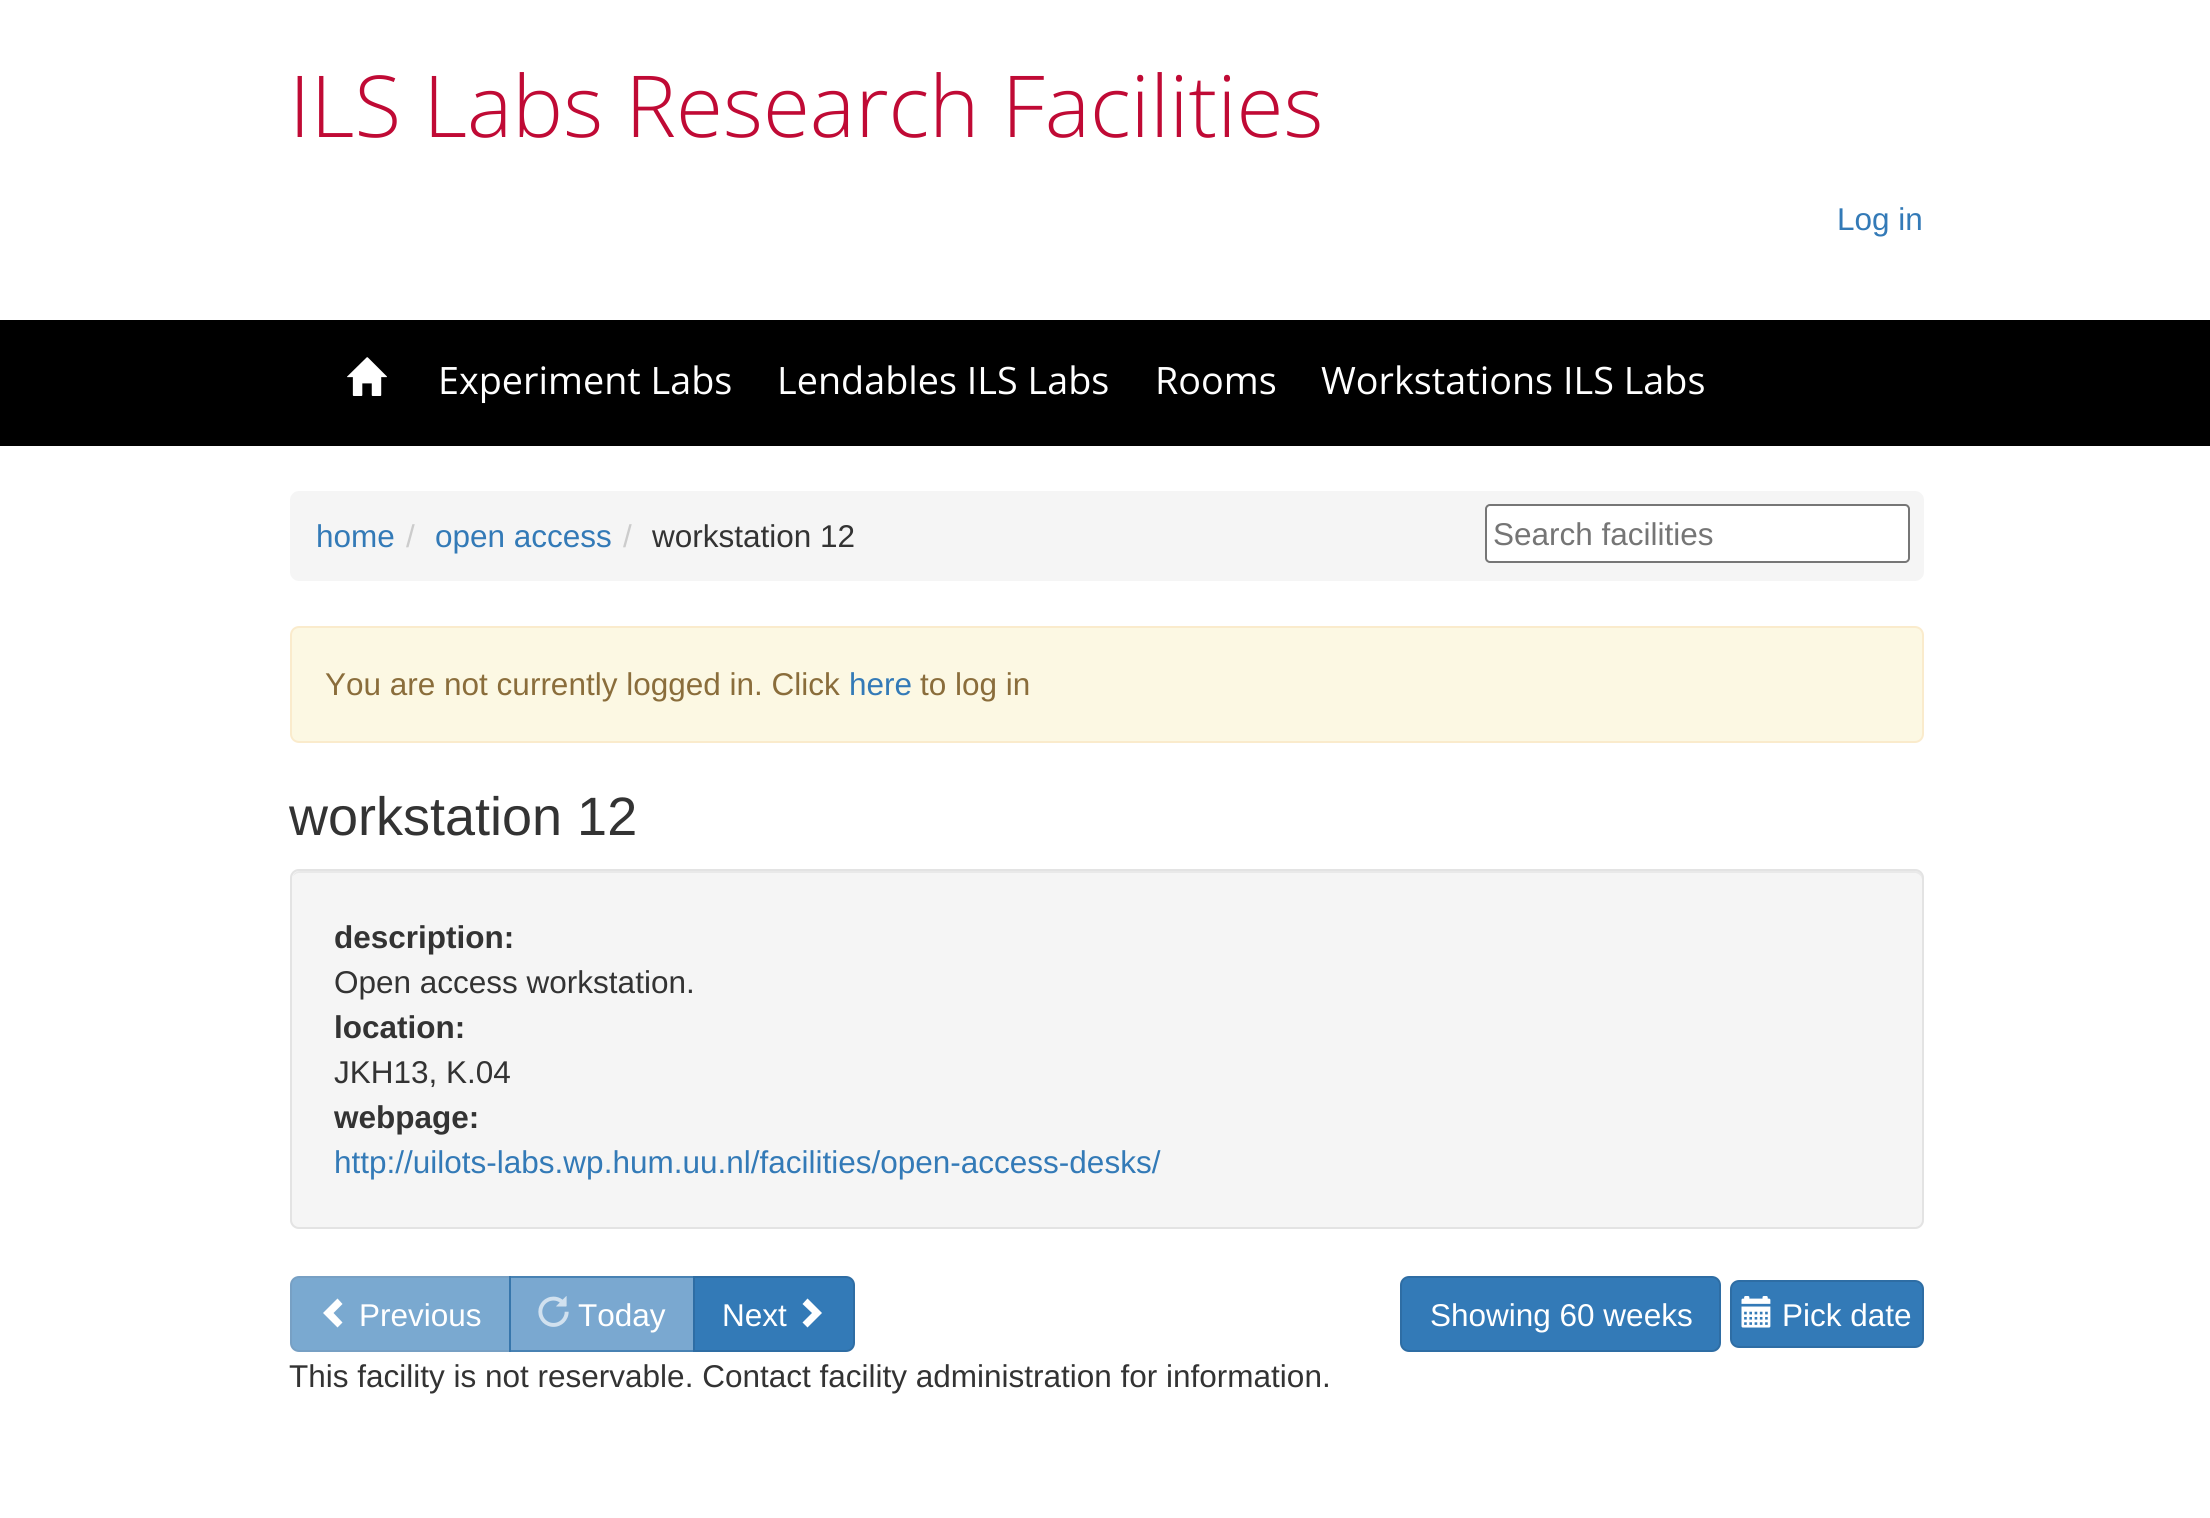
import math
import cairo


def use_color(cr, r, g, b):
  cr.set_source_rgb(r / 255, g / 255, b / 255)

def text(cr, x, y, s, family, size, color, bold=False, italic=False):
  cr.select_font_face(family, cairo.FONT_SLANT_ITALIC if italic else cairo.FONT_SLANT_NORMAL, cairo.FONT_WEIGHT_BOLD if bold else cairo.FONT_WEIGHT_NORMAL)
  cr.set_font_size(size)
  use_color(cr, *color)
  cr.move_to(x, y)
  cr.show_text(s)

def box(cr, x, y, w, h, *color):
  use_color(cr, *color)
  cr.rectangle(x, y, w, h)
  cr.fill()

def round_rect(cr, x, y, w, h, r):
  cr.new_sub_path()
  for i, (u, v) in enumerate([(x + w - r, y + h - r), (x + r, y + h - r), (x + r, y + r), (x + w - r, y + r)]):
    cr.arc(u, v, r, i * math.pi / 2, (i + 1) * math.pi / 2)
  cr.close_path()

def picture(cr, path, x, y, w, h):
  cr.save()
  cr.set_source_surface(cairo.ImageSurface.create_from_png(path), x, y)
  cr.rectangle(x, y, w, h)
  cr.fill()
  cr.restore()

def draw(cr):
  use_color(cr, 255, 255, 255)
  cr.paint()
  box(cr, 0, 320, 2210, 126, 0, 0, 0)
  picture(cr, "img_01.png", 347, 357, 40, 39)
  use_color(cr, 245, 245, 245)
  round_rect(cr, 290, 491, 1634, 90, 9)
  cr.fill()
  use_color(cr, 255, 255, 255)
  round_rect(cr, 1486, 505, 423, 57, 4)
  cr.fill_preserve()
  use_color(cr, 118, 118, 118)
  cr.stroke()
  use_color(cr, 252, 248, 227)
  round_rect(cr, 291, 627, 1632, 115, 8)
  cr.fill_preserve()
  use_color(cr, 250, 235, 204)
  cr.stroke()
  use_color(cr, 245, 245, 245)
  round_rect(cr, 290, 869, 1634, 360, 9)
  cr.fill()
  use_color(cr, 233, 233, 233)
  cr.new_path()
  cr.move_to(299, 873)
  cr.line_to(1915, 873)
  cr.curve_to(1918, 873, 1922, 876, 1922, 880)
  cr.line_to(1922, 878)
  cr.curve_to(1922, 874, 1919, 871, 1915, 871)
  cr.line_to(300, 871)
  cr.curve_to(297, 871, 294, 873, 293, 876)
  cr.curve_to(295, 874, 297, 873, 299, 873)
  cr.close_path()
  cr.fill()
  round_rect(cr, 291, 870, 1632, 358, 8)
  use_color(cr, 227, 227, 227)
  cr.stroke()
  use_color(cr, 122, 169, 208)
  cr.new_path()
  cr.move_to(299, 1277)
  cr.line_to(510, 1277)
  cr.line_to(510, 1351)
  cr.line_to(299, 1351)
  cr.curve_to(294.5, 1351, 291, 1347.5, 291, 1343)
  cr.line_to(291, 1285)
  cr.curve_to(291, 1280.5, 294.5, 1277, 299, 1277)
  cr.close_path()
  cr.fill_preserve()
  use_color(cr, 119, 160, 196)
  cr.stroke()
  use_color(cr, 255, 255, 255)
  cr.new_path()
  cr.move_to(342.5, 1304)
  cr.line_to(333.5, 1313)
  cr.line_to(342.5, 1322.5)
  cr.line_to(337.5, 1327.5)
  cr.line_to(323, 1313)
  cr.line_to(337.5, 1298.5)
  cr.close_path()
  cr.fill()
  cr.set_source_rgba(0.2, 0.478, 0.718, 0.65)
  cr.rectangle(509, 1276, 184, 76)
  cr.fill()
  cr.rectangle(510, 1277, 184, 74)
  cr.set_source_rgba(0.18, 0.427, 0.643, 0.65)
  cr.stroke()
  picture(cr, "img_02.png", 538, 1296, 31, 31)
  use_color(cr, 51, 122, 183)
  cr.new_path()
  cr.move_to(694, 1277)
  cr.line_to(846, 1277)
  cr.curve_to(850.5, 1277, 854, 1280.5, 854, 1285)
  cr.line_to(854, 1343)
  cr.curve_to(854, 1347.5, 850.5, 1351, 846, 1351)
  cr.line_to(694, 1351)
  cr.close_path()
  cr.fill_preserve()
  use_color(cr, 46, 109, 164)
  cr.stroke()
  use_color(cr, 255, 255, 255)
  cr.new_path()
  cr.move_to(822, 1313)
  cr.line_to(807.5, 1327.5)
  cr.line_to(802.5, 1322.5)
  cr.line_to(812, 1313)
  cr.line_to(802.5, 1304)
  cr.line_to(807.5, 1298.5)
  cr.close_path()
  cr.fill()
  use_color(cr, 51, 122, 183)
  round_rect(cr, 1401, 1277, 319, 74, 8)
  cr.fill_preserve()
  use_color(cr, 46, 109, 164)
  cr.stroke()
  use_color(cr, 51, 122, 183)
  round_rect(cr, 1731, 1281, 192, 66, 8)
  cr.fill_preserve()
  use_color(cr, 46, 109, 164)
  cr.stroke()
  picture(cr, "img_03.png", 1741, 1296, 30, 32)
  text(cr, 289, 137, "ILS Labs Research Facilities", "Open Sans Light", 85.5, (192, 10, 53))
  text(cr, 1837, 230, "Log in", "Liberation Sans", 31.5, (51, 122, 183))
  text(cr, 438, 394, "Experiment Labs", "Open Sans", 37.75, (255, 255, 255))
  text(cr, 777, 394, "Lendables ILS Labs", "Open Sans", 37.75, (255, 255, 255))
  text(cr, 1155, 394, "Rooms", "Open Sans", 37.75, (255, 255, 255))
  text(cr, 1321, 394, "Workstations ILS Labs", "Open Sans", 37.75, (255, 255, 255))
  text(cr, 316, 547, "home", "Liberation Sans", 31.5, (51, 122, 183))
  text(cr, 406, 547, "/", "Liberation Sans", 31.5, (204, 204, 204))
  text(cr, 435, 547, "open access", "Liberation Sans", 31.5, (51, 122, 183))
  text(cr, 623, 547, "/", "Liberation Sans", 31.5, (204, 204, 204))
  text(cr, 652, 547, "workstation 12", "Liberation Sans", 31.5, (51, 51, 51))
  text(cr, 1493, 545, "Search facilities", "Liberation Sans", 31.5, (117, 117, 117))
  text(cr, 325, 695, "You are not currently logged in. Click", "Liberation Sans", 31.5, (138, 109, 59))
  text(cr, 849, 695, "here", "Liberation Sans", 31.5, (51, 122, 183))
  text(cr, 920, 695, "to log in", "Liberation Sans", 31.5, (138, 109, 59))
  text(cr, 289, 835, "workstation 12", "Liberation Sans", 54, (51, 51, 51))
  text(cr, 334, 948, "description:", "Liberation Sans", 31.5, (51, 51, 51), bold=True)
  text(cr, 334, 993, "Open access workstation.", "Liberation Sans", 31.5, (51, 51, 51))
  text(cr, 334, 1038, "location:", "Liberation Sans", 31.5, (51, 51, 51), bold=True)
  text(cr, 334, 1083, "JKH13, K.04", "Liberation Sans", 31.5, (51, 51, 51))
  text(cr, 334, 1128, "webpage:", "Liberation Sans", 31.5, (51, 51, 51), bold=True)
  text(cr, 334, 1173, "http://uilots-labs.wp.hum.uu.nl/facilities/open-access-desks/", "Liberation Sans", 31.5, (51, 122, 183))
  text(cr, 359, 1326, "Previous", "Liberation Sans", 31.5, (255, 255, 255))
  text(cr, 578, 1326, "Today", "Liberation Sans", 31.5, (255, 255, 255))
  text(cr, 722, 1326, "Next", "Liberation Sans", 31.5, (255, 255, 255))
  text(cr, 1430, 1326, "Showing 60 weeks", "Liberation Sans", 31.5, (255, 255, 255))
  text(cr, 1782, 1326, "Pick date", "Liberation Sans", 31.5, (255, 255, 255))
  text(cr, 289, 1387, "This facility is not reservable. Contact facility administration for information.", "Liberation Sans", 31.5, (51, 51, 51))


surface = cairo.ImageSurface(cairo.FORMAT_RGB24, 2210, 1518)
cr = cairo.Context(surface)
options = cairo.FontOptions()
options.set_hint_metrics(cairo.HINT_METRICS_OFF)
options.set_hint_style(cairo.HINT_STYLE_NONE)
cr.set_font_options(options)
cr.set_miter_limit(4)
draw(cr)
surface.write_to_png("out.png")
